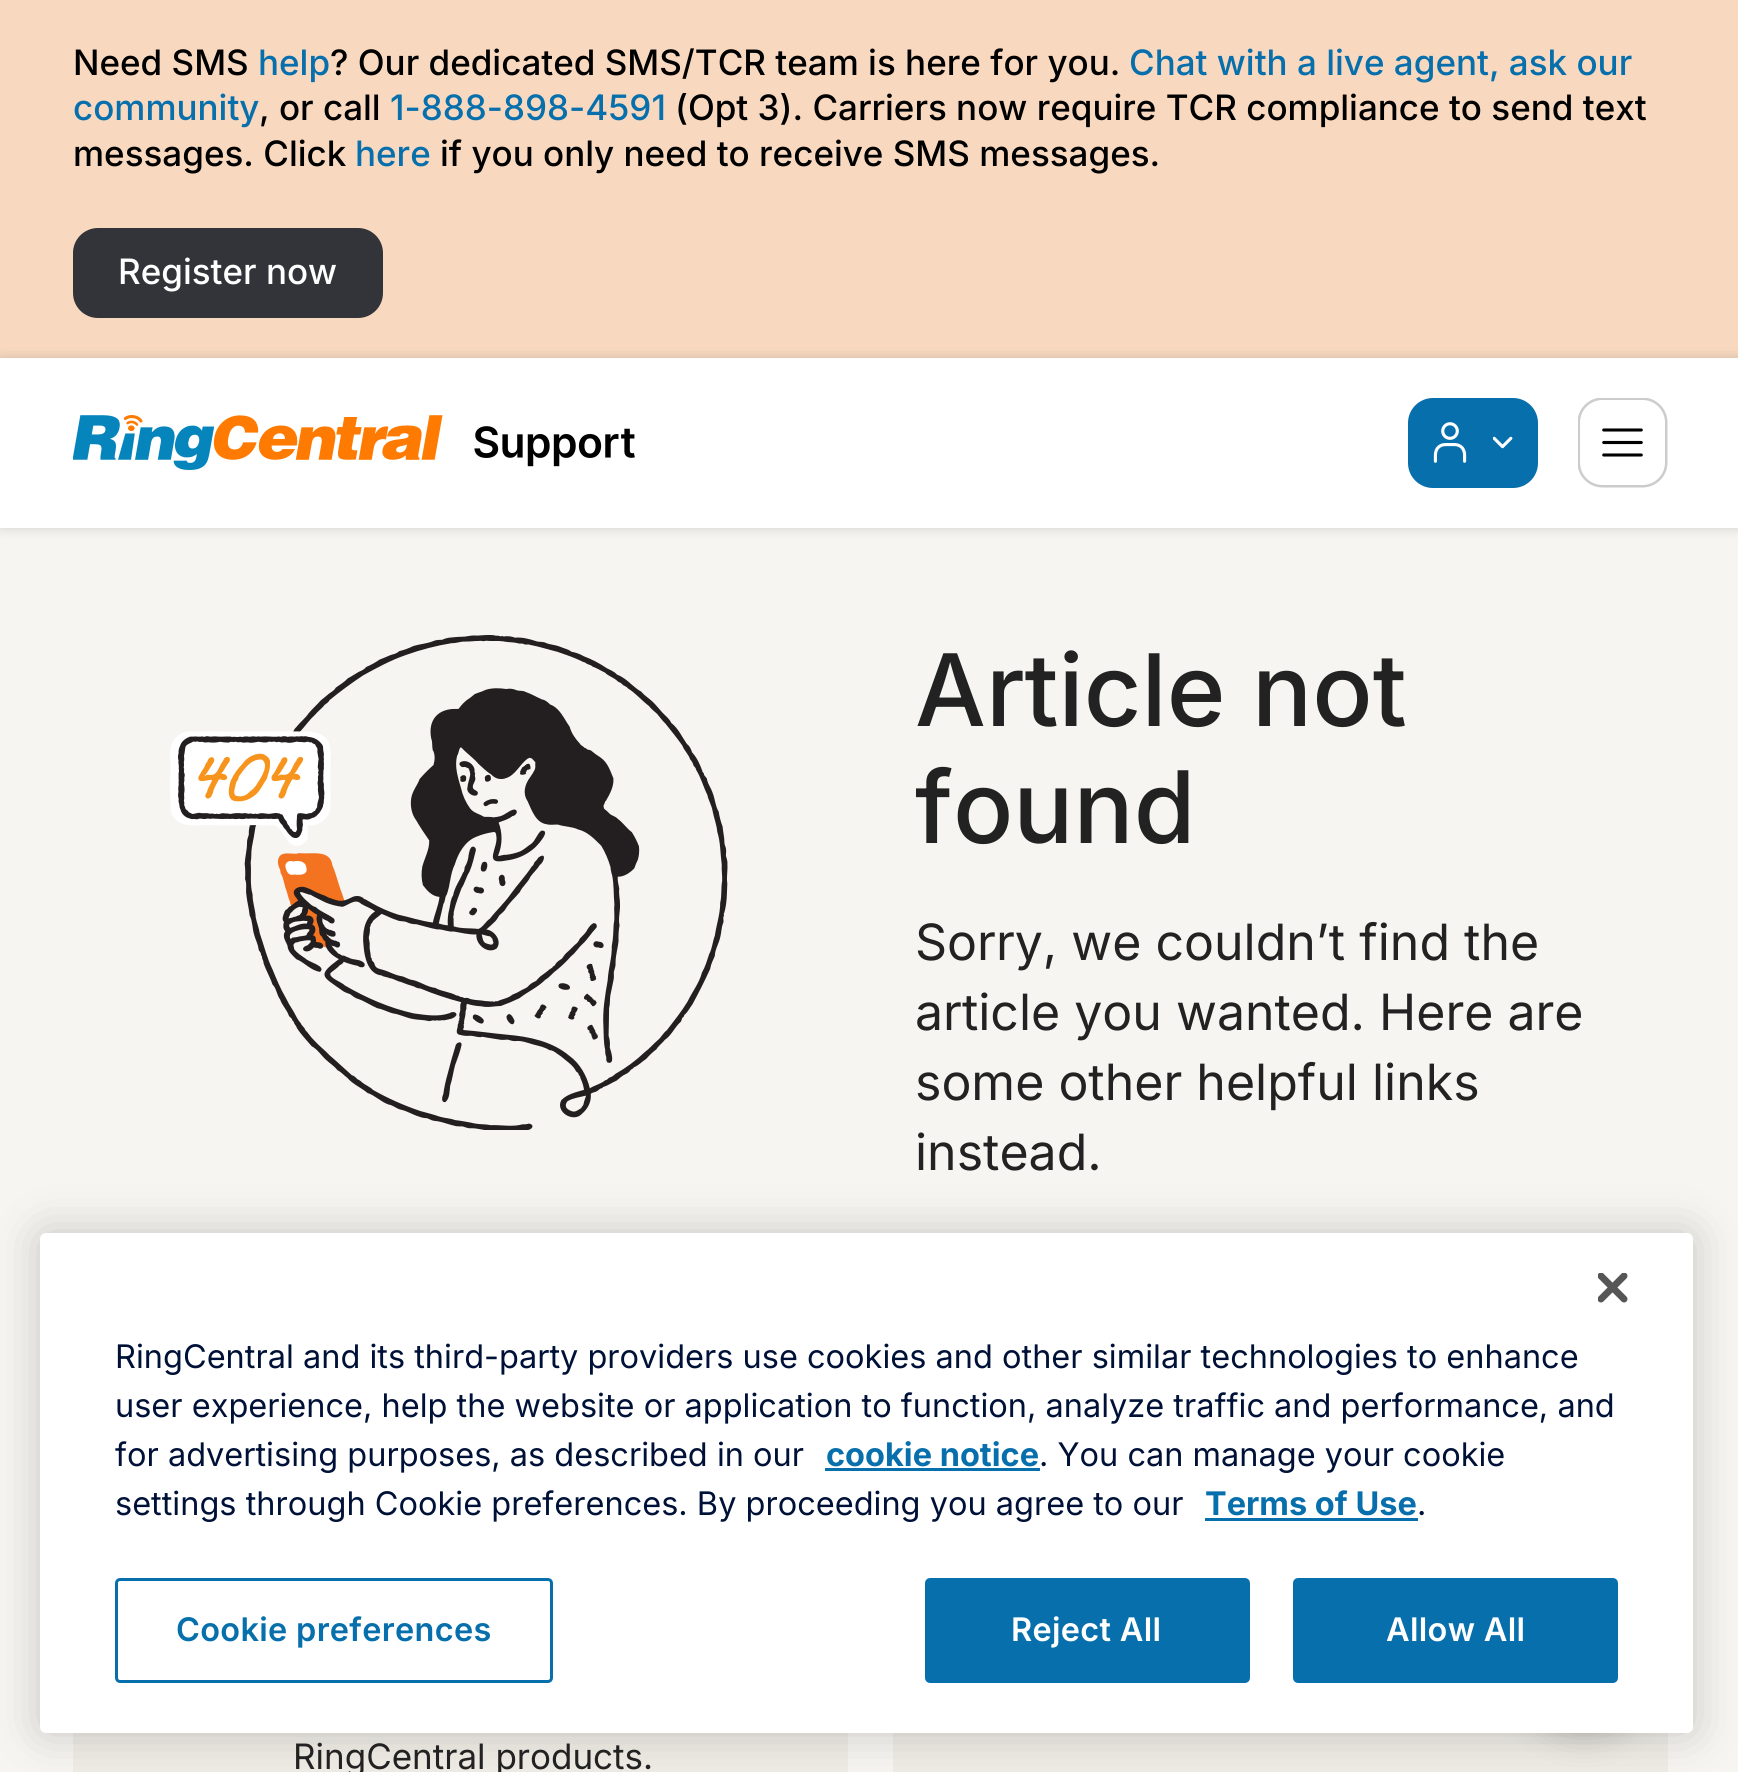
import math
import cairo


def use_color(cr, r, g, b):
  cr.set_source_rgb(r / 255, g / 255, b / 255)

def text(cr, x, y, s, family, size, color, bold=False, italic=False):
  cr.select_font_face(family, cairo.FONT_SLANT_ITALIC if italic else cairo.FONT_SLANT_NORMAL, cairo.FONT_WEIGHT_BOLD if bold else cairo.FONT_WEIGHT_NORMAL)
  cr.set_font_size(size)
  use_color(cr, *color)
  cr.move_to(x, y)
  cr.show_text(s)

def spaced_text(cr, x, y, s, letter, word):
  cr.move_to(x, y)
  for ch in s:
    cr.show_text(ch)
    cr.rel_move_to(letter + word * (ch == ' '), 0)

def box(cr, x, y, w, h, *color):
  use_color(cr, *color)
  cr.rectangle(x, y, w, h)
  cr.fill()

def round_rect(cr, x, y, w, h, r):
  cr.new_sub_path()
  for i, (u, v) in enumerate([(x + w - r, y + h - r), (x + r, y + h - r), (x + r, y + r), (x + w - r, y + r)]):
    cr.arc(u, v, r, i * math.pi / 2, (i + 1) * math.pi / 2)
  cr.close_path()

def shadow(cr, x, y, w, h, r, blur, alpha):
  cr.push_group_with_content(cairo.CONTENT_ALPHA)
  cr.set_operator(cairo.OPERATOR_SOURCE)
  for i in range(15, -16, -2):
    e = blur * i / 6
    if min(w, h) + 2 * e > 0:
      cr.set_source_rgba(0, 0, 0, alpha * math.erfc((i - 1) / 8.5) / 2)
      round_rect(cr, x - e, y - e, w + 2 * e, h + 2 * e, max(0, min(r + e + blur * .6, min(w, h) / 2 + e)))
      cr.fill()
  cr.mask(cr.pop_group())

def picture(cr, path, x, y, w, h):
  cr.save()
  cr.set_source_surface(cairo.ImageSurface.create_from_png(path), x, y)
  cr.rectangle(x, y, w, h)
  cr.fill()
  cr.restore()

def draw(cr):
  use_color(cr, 246, 245, 241)
  cr.paint()
  box(cr, 0, 0, 1738, 358, 248, 217, 192)
  use_color(cr, 50, 52, 57)
  round_rect(cr, 73, 228, 310, 90, 25)
  cr.fill()
  use_color(cr, 0, 0, 0)
  shadow(cr, 0, 358, 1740, 170, 0, 6, 0.15)
  box(cr, 0, 358, 1738, 170, 255, 255, 255)
  picture(cr, "img_01.png", 73, 415, 562, 55)
  use_color(cr, 6, 111, 172)
  round_rect(cr, 1408, 398, 130, 90, 25)
  cr.fill()
  picture(cr, "img_02.png", 1433, 422, 34, 41)
  picture(cr, "img_03.png", 1493, 436, 20, 13)
  picture(cr, "img_04.png", 1578, 398, 90, 90)
  picture(cr, "img_05.png", 170, 635, 558, 495)
  box(cr, 73, 1733, 775, 39, 238, 236, 229)
  box(cr, 893, 1733, 775, 39, 238, 236, 229)
  use_color(cr, 0, 0, 0)
  shadow(cr, 40, 1233, 1653, 500, 6, 22.5, 0.2)
  use_color(cr, 88, 88, 88)
  shadow(cr, 1510, 1588, 150, 150, 75, 14, 0.27)
  use_color(cr, 255, 255, 255)
  round_rect(cr, 40, 1233, 1653, 500, 6)
  cr.fill()
  picture(cr, "img_06.png", 1598, 1273, 30, 30)
  box(cr, 825, 1468, 215, 3, 6, 111, 172)
  box(cr, 1205, 1518, 213, 3, 6, 111, 172)
  round_rect(cr, 116.5, 1579.5, 435, 102, 3.5)
  cr.set_line_width(3)
  cr.stroke()
  round_rect(cr, 926.5, 1579.5, 322, 102, 3.5)
  cr.fill_preserve()
  cr.stroke()
  round_rect(cr, 1294.5, 1579.5, 322, 102, 3.5)
  cr.fill_preserve()
  cr.stroke()
  text(cr, 73, 75, "Need SMS", "Inter Medium", 35, (0, 0, 0))
  text(cr, 258, 75, "help", "Inter Medium", 35, (6, 111, 172))
  text(cr, 330, 75, "? Our dedicated SMS/TCR team is here for you.", "Inter Medium", 35, (0, 0, 0))
  text(cr, 1129, 75, "Chat with a live agent, ask our", "Inter Medium", 35, (6, 111, 172))
  text(cr, 73, 120, "community", "Inter Medium", 35, (6, 111, 172))
  text(cr, 259, 120, ", or call", "Inter Medium", 35, (0, 0, 0))
  text(cr, 390, 120, "1-888-898-4591", "Inter Medium", 35, (6, 111, 172))
  text(cr, 675, 120, "(Opt 3). Carriers now require TCR compliance to send text", "Inter Medium", 35, (0, 0, 0))
  text(cr, 73, 166, "messages. Click", "Inter Medium", 35, (0, 0, 0))
  text(cr, 355, 166, "here", "Inter Medium", 35, (6, 111, 172))
  text(cr, 440, 166, "if you only need to receive SMS messages.", "Inter Medium", 35, (0, 0, 0))
  text(cr, 118, 284, "Register now", "Inter Medium", 35, (255, 255, 255))
  text(cr, 915, 726, "Article not", "Inter Medium", 100, (34, 34, 34))
  text(cr, 915, 843, "found", "Inter Medium", 100, (34, 34, 34))
  text(cr, 915, 960, "Sorry, we couldn’t find the", "Inter", 50, (34, 34, 34))
  text(cr, 915, 1030, "article you wanted. Here are", "Inter", 50, (34, 34, 34))
  text(cr, 915, 1100, "some other helpful links", "Inter", 50, (34, 34, 34))
  text(cr, 915, 1170, "instead.", "Inter", 50, (34, 34, 34))
  text(cr, 293, 1769, "RingCentral products.", "Inter", 35, (34, 34, 34))
  text(cr, 115, 1368, "RingCentral and its third-party providers use cookies and other similar technologies to enhance", "Inter", 32.5, (0, 17, 56))
  text(cr, 115, 1417, "user experience, help the website or application to function, analyze traffic and performance, and", "Inter", 32.5, (0, 17, 56))
  text(cr, 115, 1466, "for advertising purposes, as described in our", "Inter", 32.5, (0, 17, 56))
  text(cr, 826, 1466, "cookie notice", "Inter", 32.5, (6, 111, 172), bold=True)
  text(cr, 1039, 1466, ". You can manage your cookie", "Inter", 32.5, (0, 17, 56))
  text(cr, 115, 1515, "settings through Cookie preferences. By proceeding you agree to our", "Inter", 32.5, (0, 17, 56))
  text(cr, 1205, 1515, "Terms of Use", "Inter", 32.5, (6, 111, 172), bold=True)
  text(cr, 1417, 1515, ".", "Inter", 32.5, (0, 17, 56))
  cr.select_font_face("Inter SemiBold")
  use_color(cr, 6, 111, 172)
  spaced_text(cr, 176, 1641, "Cookie preferences", 0.3, 0)
  use_color(cr, 255, 255, 255)
  spaced_text(cr, 1011, 1641, "Reject All", 0.3, 0)
  spaced_text(cr, 1386, 1641, "Allow All", 0.3, 0)


surface = cairo.ImageSurface(cairo.FORMAT_RGB24, 1738, 1772)
cr = cairo.Context(surface)
options = cairo.FontOptions()
options.set_hint_metrics(cairo.HINT_METRICS_OFF)
options.set_hint_style(cairo.HINT_STYLE_NONE)
cr.set_font_options(options)
cr.set_miter_limit(4)
draw(cr)
surface.write_to_png("out.png")
